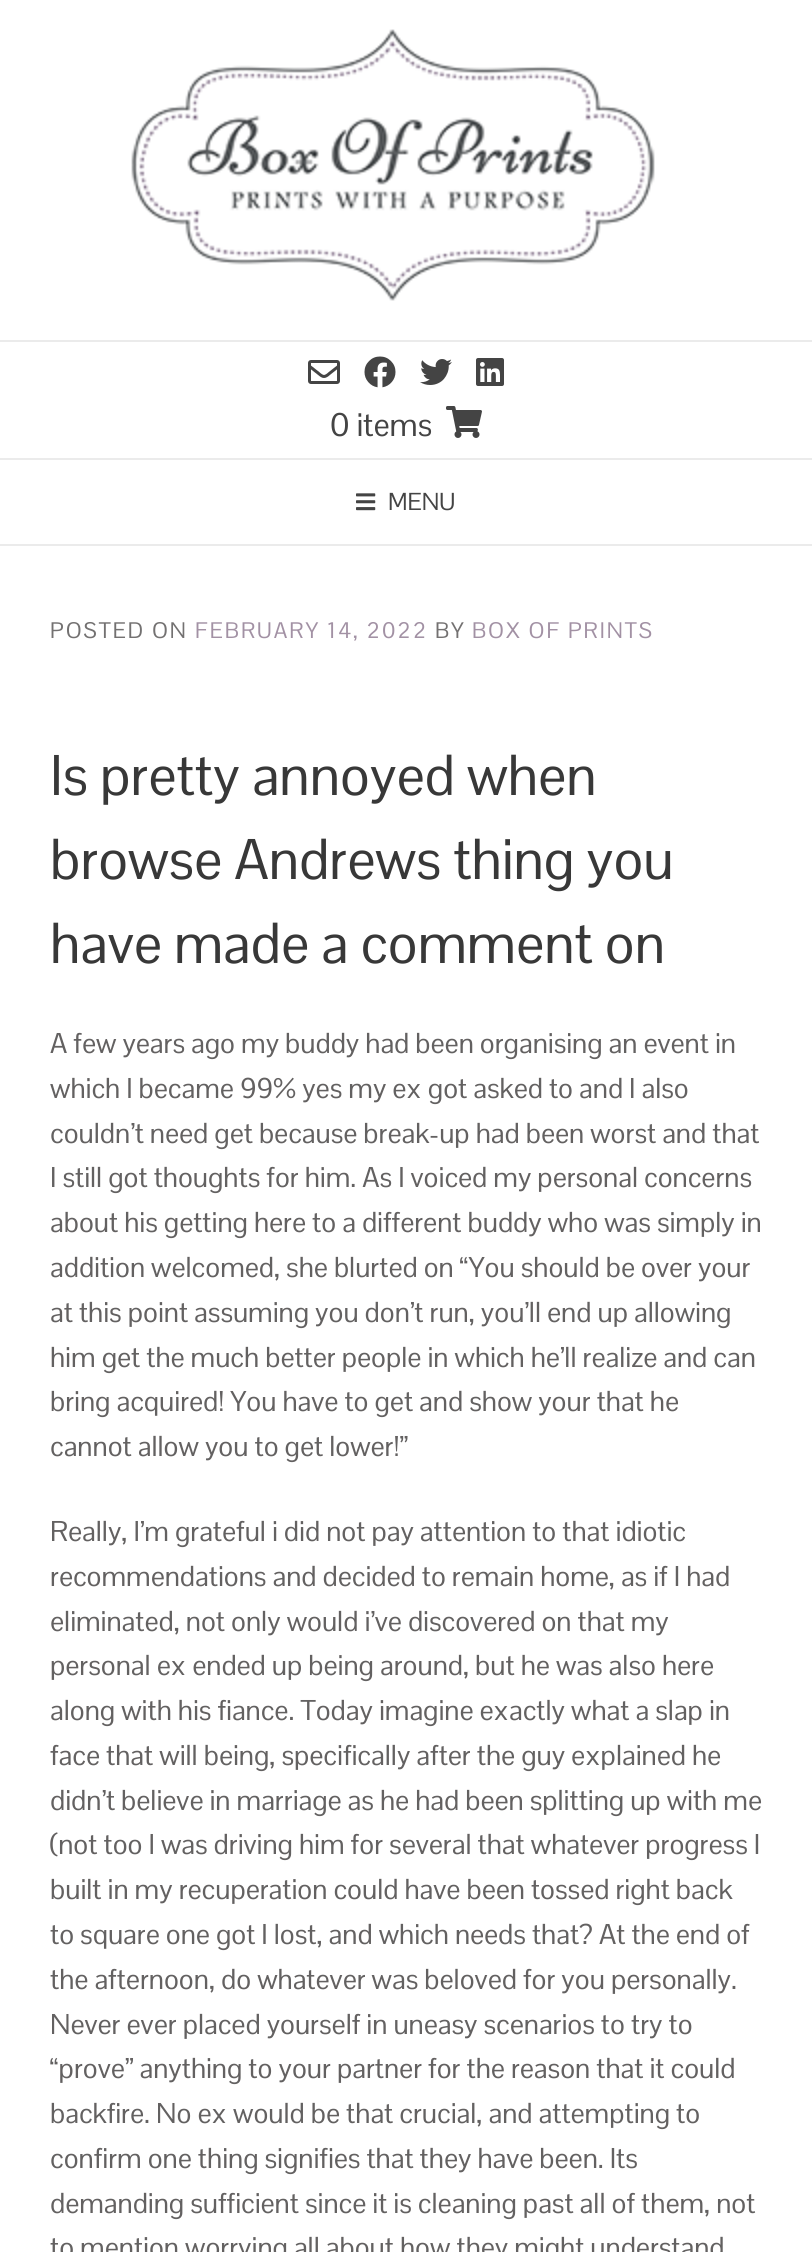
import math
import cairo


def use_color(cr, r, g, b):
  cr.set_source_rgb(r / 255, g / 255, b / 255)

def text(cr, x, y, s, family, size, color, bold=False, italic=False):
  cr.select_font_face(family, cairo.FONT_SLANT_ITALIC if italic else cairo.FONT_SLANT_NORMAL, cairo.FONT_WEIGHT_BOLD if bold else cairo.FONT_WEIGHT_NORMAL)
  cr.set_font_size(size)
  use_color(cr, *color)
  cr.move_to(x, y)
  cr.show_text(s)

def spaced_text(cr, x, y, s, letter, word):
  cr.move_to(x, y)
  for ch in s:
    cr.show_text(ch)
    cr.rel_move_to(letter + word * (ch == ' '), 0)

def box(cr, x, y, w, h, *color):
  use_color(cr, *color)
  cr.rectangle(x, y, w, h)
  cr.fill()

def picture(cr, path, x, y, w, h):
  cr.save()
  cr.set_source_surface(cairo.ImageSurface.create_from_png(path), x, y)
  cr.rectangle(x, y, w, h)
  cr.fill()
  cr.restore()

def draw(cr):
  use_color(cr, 255, 255, 255)
  cr.paint()
  picture(cr, "img_01.png", 131, 29, 524, 272)
  box(cr, 0, 340, 812, 2, 235, 235, 235)
  picture(cr, "img_02.png", 308, 360, 32, 24)
  picture(cr, "img_03.png", 364, 356, 32, 32)
  picture(cr, "img_04.png", 420, 359, 32, 26)
  picture(cr, "img_05.png", 476, 358, 28, 28)
  picture(cr, "img_06.png", 446, 406, 36, 32)
  box(cr, 0, 458, 812, 2, 235, 235, 235)
  box(cr, 0, 544, 812, 2, 235, 235, 235)
  picture(cr, "img_07.png", 356, 493, 20, 18)
  text(cr, 330, 436, "0 items", "Pontano Sans", 32, (68, 68, 68))
  text(cr, 388, 510, "MENU", "Pontano Sans", 24, (68, 68, 68))
  cr.set_font_size(22)
  use_color(cr, 115, 113, 113)
  spaced_text(cr, 50, 638, "POSTED ON", 2, 0)
  use_color(cr, 162, 145, 164)
  spaced_text(cr, 195, 638, "FEBRUARY 14, 2022", 2, 0)
  use_color(cr, 115, 113, 113)
  spaced_text(cr, 435, 638, "BY", 2, 0)
  use_color(cr, 162, 145, 164)
  spaced_text(cr, 472, 638, "BOX OF PRINTS", 2, 0)
  text(cr, 50, 795, "Is pretty annoyed when", "Pontano Sans", 56, (56, 56, 56))
  text(cr, 50, 879, "browse Andrews thing you", "Pontano Sans", 56, (56, 56, 56))
  text(cr, 50, 963, "have made a comment on", "Pontano Sans", 56, (56, 56, 56))
  text(cr, 50, 1053, "A few years ago my buddy had been organising an event in", "Pontano Sans", 28, (99, 97, 97))
  text(cr, 50, 1098, "which I became 99% yes my ex got asked to and I also", "Pontano Sans", 28, (99, 97, 97))
  text(cr, 50, 1143, "couldn’t need get because break-up had been worst and that", "Pontano Sans", 28, (99, 97, 97))
  text(cr, 50, 1187, "I still got thoughts for him. As I voiced my personal concerns", "Pontano Sans", 28, (99, 97, 97))
  text(cr, 50, 1232, "about his getting here to a different buddy who was simply in", "Pontano Sans", 28, (99, 97, 97))
  text(cr, 50, 1277, "addition welcomed, she blurted on “You should be over your", "Pontano Sans", 28, (99, 97, 97))
  text(cr, 50, 1322, "at this point assuming you don’t run, you’ll end up allowing", "Pontano Sans", 28, (99, 97, 97))
  text(cr, 50, 1367, "him get the much better people in which he’ll realize and can", "Pontano Sans", 28, (99, 97, 97))
  text(cr, 50, 1411, "bring acquired! You have to get and show your that he", "Pontano Sans", 28, (99, 97, 97))
  text(cr, 50, 1456, "cannot allow you to get lower!”", "Pontano Sans", 28, (99, 97, 97))
  text(cr, 50, 1541, "Really, I’m grateful i did not pay attention to that idiotic", "Pontano Sans", 28, (99, 97, 97))
  text(cr, 50, 1586, "recommendations and decided to remain home, as if I had", "Pontano Sans", 28, (99, 97, 97))
  text(cr, 50, 1631, "eliminated, not only would i’ve discovered on that my", "Pontano Sans", 28, (99, 97, 97))
  text(cr, 50, 1675, "personal ex ended up being around, but he was also here", "Pontano Sans", 28, (99, 97, 97))
  text(cr, 50, 1720, "along with his fiance. Today imagine exactly what a slap in", "Pontano Sans", 28, (99, 97, 97))
  text(cr, 50, 1765, "face that will being, specifically after the guy explained he", "Pontano Sans", 28, (99, 97, 97))
  text(cr, 50, 1810, "didn’t believe in marriage as he had been splitting up with me", "Pontano Sans", 28, (99, 97, 97))
  text(cr, 50, 1854, "(not too I was driving him for several that whatever progress I", "Pontano Sans", 28, (99, 97, 97))
  text(cr, 50, 1899, "built in my recuperation could have been tossed right back", "Pontano Sans", 28, (99, 97, 97))
  text(cr, 50, 1944, "to square one got I lost, and which needs that? At the end of", "Pontano Sans", 28, (99, 97, 97))
  text(cr, 50, 1989, "the afternoon, do whatever was beloved for you personally.", "Pontano Sans", 28, (99, 97, 97))
  text(cr, 50, 2034, "Never ever placed yourself in uneasy scenarios to try to", "Pontano Sans", 28, (99, 97, 97))
  text(cr, 50, 2078, "“prove” anything to your partner for the reason that it could", "Pontano Sans", 28, (99, 97, 97))
  text(cr, 50, 2123, "backfire. No ex would be that crucial, and attempting to", "Pontano Sans", 28, (99, 97, 97))
  text(cr, 50, 2168, "confirm one thing signifies that they have been. Its", "Pontano Sans", 28, (99, 97, 97))
  text(cr, 50, 2213, "demanding sufficient since it is cleaning past all of them, not", "Pontano Sans", 28, (99, 97, 97))
  text(cr, 50, 2257, "to mention worrying all about how they might understand", "Pontano Sans", 28, (99, 97, 97))


surface = cairo.ImageSurface(cairo.FORMAT_RGB24, 812, 2252)
cr = cairo.Context(surface)
options = cairo.FontOptions()
options.set_hint_metrics(cairo.HINT_METRICS_OFF)
options.set_hint_style(cairo.HINT_STYLE_NONE)
cr.set_font_options(options)
cr.set_miter_limit(4)
draw(cr)
surface.write_to_png("out.png")
